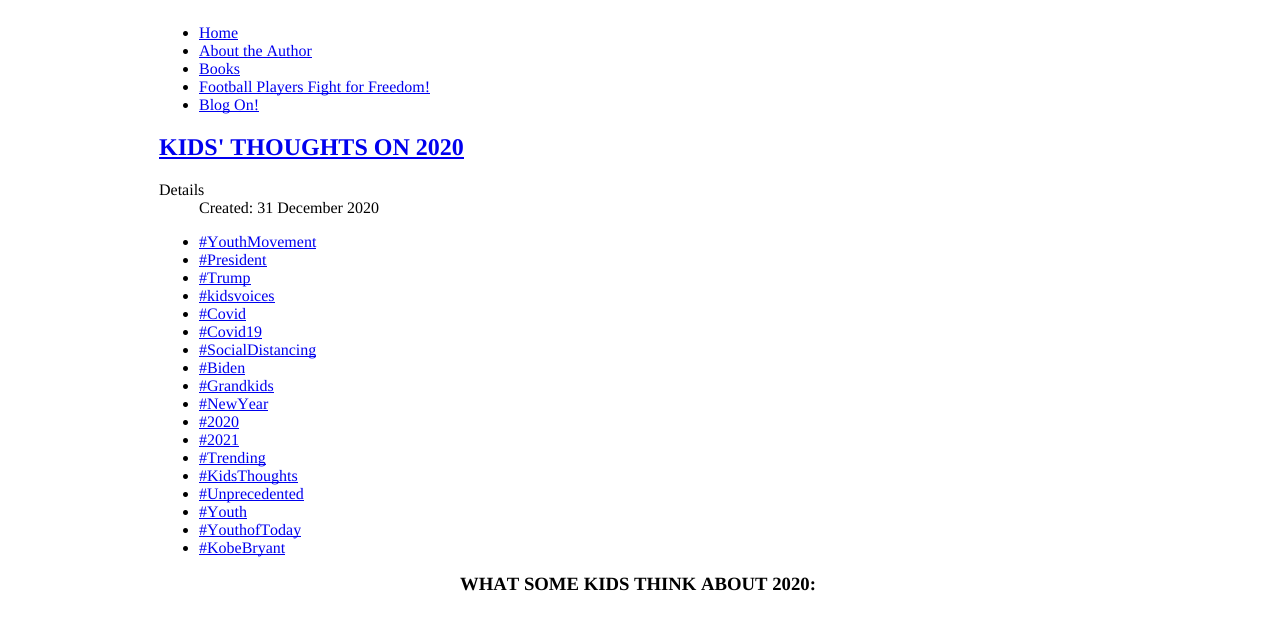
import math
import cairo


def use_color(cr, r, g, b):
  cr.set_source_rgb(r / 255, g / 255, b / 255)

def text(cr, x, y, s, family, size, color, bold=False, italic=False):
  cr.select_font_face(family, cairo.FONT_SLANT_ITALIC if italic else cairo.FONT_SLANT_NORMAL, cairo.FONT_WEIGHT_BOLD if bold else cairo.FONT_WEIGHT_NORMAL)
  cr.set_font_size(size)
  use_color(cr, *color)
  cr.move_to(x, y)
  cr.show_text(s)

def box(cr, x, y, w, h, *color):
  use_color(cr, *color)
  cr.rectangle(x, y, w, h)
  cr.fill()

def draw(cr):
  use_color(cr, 255, 255, 255)
  cr.paint()
  use_color(cr, 0, 0, 0)
  cr.arc(185.5, 33.5, 2.5, 0, 2 * math.pi)
  cr.fill()
  box(cr, 199, 39, 39, 1, 0, 0, 238)
  use_color(cr, 0, 0, 0)
  cr.arc(185.5, 51.5, 2.5, 0, 2 * math.pi)
  cr.fill()
  box(cr, 199, 57, 113, 1, 0, 0, 238)
  use_color(cr, 0, 0, 0)
  cr.arc(185.5, 69.5, 2.5, 0, 2 * math.pi)
  cr.fill()
  box(cr, 199, 75, 41, 1, 0, 0, 238)
  use_color(cr, 0, 0, 0)
  cr.arc(185.5, 87.5, 2.5, 0, 2 * math.pi)
  cr.fill()
  box(cr, 199, 93, 231, 1, 0, 0, 238)
  use_color(cr, 0, 0, 0)
  cr.arc(185.5, 105.5, 2.5, 0, 2 * math.pi)
  cr.fill()
  box(cr, 199, 111, 60, 1, 0, 0, 238)
  box(cr, 159, 157, 305, 2, 0, 0, 238)
  use_color(cr, 0, 0, 0)
  cr.arc(185.5, 242.5, 2.5, 0, 2 * math.pi)
  cr.fill()
  box(cr, 199, 248, 117, 1, 0, 0, 238)
  use_color(cr, 0, 0, 0)
  cr.arc(185.5, 260.5, 2.5, 0, 2 * math.pi)
  cr.fill()
  box(cr, 199, 266, 68, 1, 0, 0, 238)
  use_color(cr, 0, 0, 0)
  cr.arc(185.5, 278.5, 2.5, 0, 2 * math.pi)
  cr.fill()
  box(cr, 199, 284, 52, 1, 0, 0, 238)
  use_color(cr, 0, 0, 0)
  cr.arc(185.5, 296.5, 2.5, 0, 2 * math.pi)
  cr.fill()
  box(cr, 199, 302, 76, 1, 0, 0, 238)
  use_color(cr, 0, 0, 0)
  cr.arc(185.5, 314.5, 2.5, 0, 2 * math.pi)
  cr.fill()
  box(cr, 199, 320, 47, 1, 0, 0, 238)
  use_color(cr, 0, 0, 0)
  cr.arc(185.5, 332.5, 2.5, 0, 2 * math.pi)
  cr.fill()
  box(cr, 199, 338, 63, 1, 0, 0, 238)
  use_color(cr, 0, 0, 0)
  cr.arc(185.5, 350.5, 2.5, 0, 2 * math.pi)
  cr.fill()
  box(cr, 199, 356, 117, 1, 0, 0, 238)
  use_color(cr, 0, 0, 0)
  cr.arc(185.5, 368.5, 2.5, 0, 2 * math.pi)
  cr.fill()
  box(cr, 199, 374, 46, 1, 0, 0, 238)
  use_color(cr, 0, 0, 0)
  cr.arc(185.5, 386.5, 2.5, 0, 2 * math.pi)
  cr.fill()
  box(cr, 199, 392, 75, 1, 0, 0, 238)
  use_color(cr, 0, 0, 0)
  cr.arc(185.5, 404.5, 2.5, 0, 2 * math.pi)
  cr.fill()
  box(cr, 199, 410, 69, 1, 0, 0, 238)
  use_color(cr, 0, 0, 0)
  cr.arc(185.5, 422.5, 2.5, 0, 2 * math.pi)
  cr.fill()
  box(cr, 199, 428, 40, 1, 0, 0, 238)
  use_color(cr, 0, 0, 0)
  cr.arc(185.5, 440.5, 2.5, 0, 2 * math.pi)
  cr.fill()
  box(cr, 199, 446, 40, 1, 0, 0, 238)
  use_color(cr, 0, 0, 0)
  cr.arc(185.5, 458.5, 2.5, 0, 2 * math.pi)
  cr.fill()
  box(cr, 199, 464, 67, 1, 0, 0, 238)
  use_color(cr, 0, 0, 0)
  cr.arc(185.5, 476.5, 2.5, 0, 2 * math.pi)
  cr.fill()
  box(cr, 199, 482, 99, 1, 0, 0, 238)
  use_color(cr, 0, 0, 0)
  cr.arc(185.5, 494.5, 2.5, 0, 2 * math.pi)
  cr.fill()
  box(cr, 199, 500, 105, 1, 0, 0, 238)
  use_color(cr, 0, 0, 0)
  cr.arc(185.5, 512.5, 2.5, 0, 2 * math.pi)
  cr.fill()
  box(cr, 199, 518, 48, 1, 0, 0, 238)
  use_color(cr, 0, 0, 0)
  cr.arc(185.5, 530.5, 2.5, 0, 2 * math.pi)
  cr.fill()
  box(cr, 199, 536, 102, 1, 0, 0, 238)
  use_color(cr, 0, 0, 0)
  cr.arc(185.5, 548.5, 2.5, 0, 2 * math.pi)
  cr.fill()
  box(cr, 199, 554, 86, 1, 0, 0, 238)
  text(cr, 199, 38, "Home", "Liberation Serif", 16, (0, 0, 238))
  text(cr, 199, 56, "About the Author", "Liberation Serif", 16, (0, 0, 238))
  text(cr, 199, 74, "Books", "Liberation Serif", 16, (0, 0, 238))
  text(cr, 199, 92, "Football Players Fight for Freedom!", "Liberation Serif", 16, (0, 0, 238))
  text(cr, 199, 110, "Blog On!", "Liberation Serif", 16, (0, 0, 238))
  text(cr, 159, 155, "KIDS' THOUGHTS ON 2020", "Liberation Serif", 24, (0, 0, 238), bold=True)
  text(cr, 159, 195, "Details", "Liberation Serif", 16, (0, 0, 0))
  text(cr, 199, 213, "Created: 31 December 2020", "Liberation Serif", 16, (0, 0, 0))
  text(cr, 199, 247, "#YouthMovement", "Liberation Serif", 16, (0, 0, 238))
  text(cr, 199, 265, "#President", "Liberation Serif", 16, (0, 0, 238))
  text(cr, 199, 283, "#Trump", "Liberation Serif", 16, (0, 0, 238))
  text(cr, 199, 301, "#kidsvoices", "Liberation Serif", 16, (0, 0, 238))
  text(cr, 199, 319, "#Covid", "Liberation Serif", 16, (0, 0, 238))
  text(cr, 199, 337, "#Covid19", "Liberation Serif", 16, (0, 0, 238))
  text(cr, 199, 355, "#SocialDistancing", "Liberation Serif", 16, (0, 0, 238))
  text(cr, 199, 373, "#Biden", "Liberation Serif", 16, (0, 0, 238))
  text(cr, 199, 391, "#Grandkids", "Liberation Serif", 16, (0, 0, 238))
  text(cr, 199, 409, "#NewYear", "Liberation Serif", 16, (0, 0, 238))
  text(cr, 199, 427, "#2020", "Liberation Serif", 16, (0, 0, 238))
  text(cr, 199, 445, "#2021", "Liberation Serif", 16, (0, 0, 238))
  text(cr, 199, 463, "#Trending", "Liberation Serif", 16, (0, 0, 238))
  text(cr, 199, 481, "#KidsThoughts", "Liberation Serif", 16, (0, 0, 238))
  text(cr, 199, 499, "#Unprecedented", "Liberation Serif", 16, (0, 0, 238))
  text(cr, 199, 517, "#Youth", "Liberation Serif", 16, (0, 0, 238))
  text(cr, 199, 535, "#YouthofToday", "Liberation Serif", 16, (0, 0, 238))
  text(cr, 199, 553, "#KobeBryant", "Liberation Serif", 16, (0, 0, 238))
  text(cr, 460, 590, "WHAT SOME KIDS THINK ABOUT 2020:", "Liberation Serif", 18.7, (0, 0, 0), bold=True)


surface = cairo.ImageSurface(cairo.FORMAT_RGB24, 1276, 625)
cr = cairo.Context(surface)
options = cairo.FontOptions()
options.set_hint_metrics(cairo.HINT_METRICS_OFF)
options.set_hint_style(cairo.HINT_STYLE_NONE)
cr.set_font_options(options)
cr.set_miter_limit(4)
draw(cr)
surface.write_to_png("out.png")
